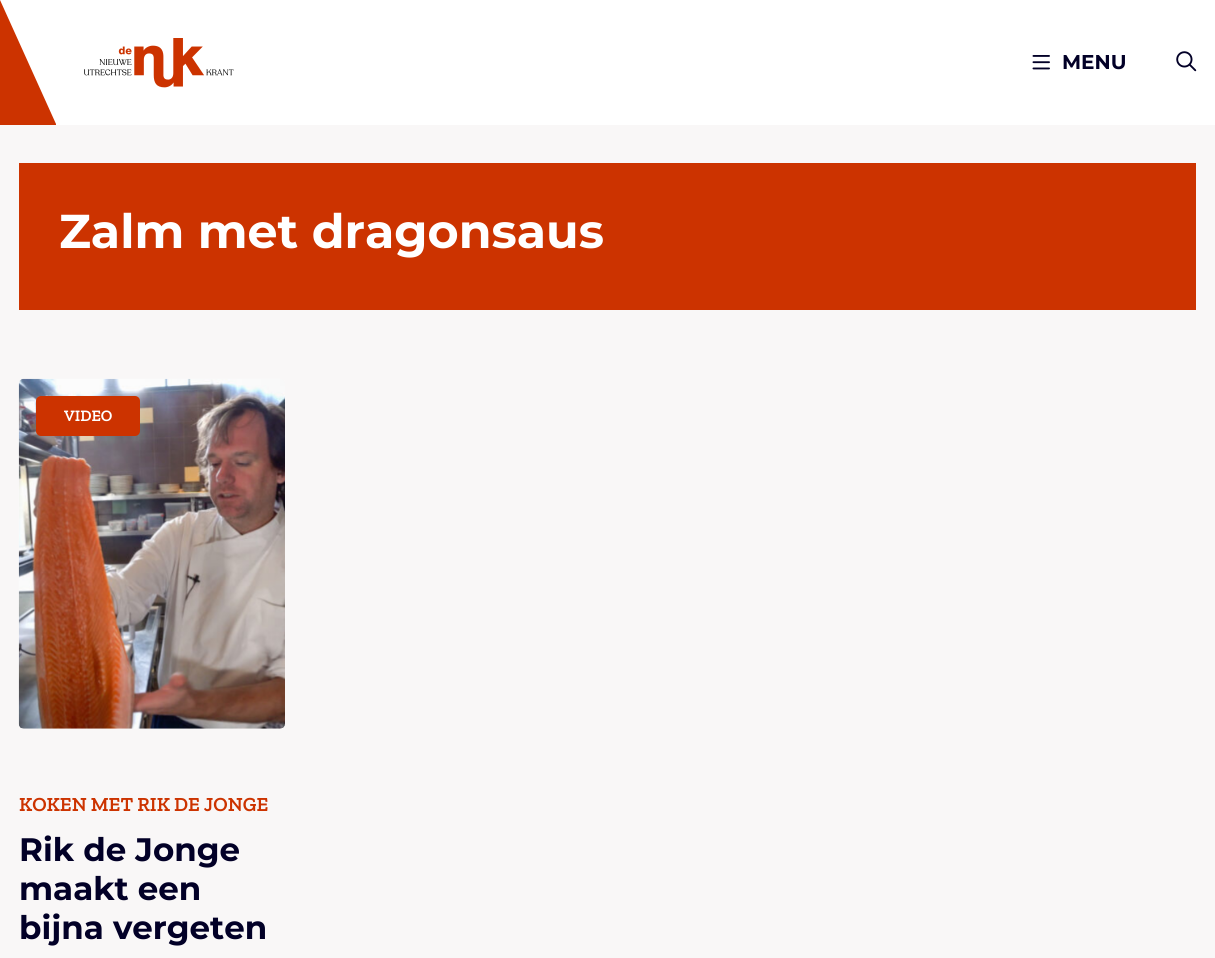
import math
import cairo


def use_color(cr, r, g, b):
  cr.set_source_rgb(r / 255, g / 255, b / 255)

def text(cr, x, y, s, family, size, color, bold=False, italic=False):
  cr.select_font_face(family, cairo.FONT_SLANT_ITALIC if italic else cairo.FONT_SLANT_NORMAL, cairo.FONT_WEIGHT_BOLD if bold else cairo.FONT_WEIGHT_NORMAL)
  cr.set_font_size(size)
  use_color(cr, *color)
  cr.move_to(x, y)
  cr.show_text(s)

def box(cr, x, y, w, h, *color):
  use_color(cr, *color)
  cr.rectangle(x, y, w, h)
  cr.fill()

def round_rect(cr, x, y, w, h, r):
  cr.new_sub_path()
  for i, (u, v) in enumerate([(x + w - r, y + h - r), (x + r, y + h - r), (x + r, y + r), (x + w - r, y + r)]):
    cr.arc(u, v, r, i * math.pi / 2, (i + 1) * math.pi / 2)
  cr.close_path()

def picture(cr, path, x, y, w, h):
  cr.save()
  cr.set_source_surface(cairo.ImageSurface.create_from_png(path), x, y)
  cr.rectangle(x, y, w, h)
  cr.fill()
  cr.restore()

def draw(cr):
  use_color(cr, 249, 247, 247)
  cr.paint()
  box(cr, 0, 0, 1215, 125, 255, 255, 255)
  use_color(cr, 204, 51, 0)
  cr.new_path()
  cr.move_to(0, 0)
  cr.line_to(0, 125)
  cr.line_to(56, 125)
  cr.line_to(56, 124)
  cr.close_path()
  cr.fill()
  picture(cr, "img_01.png", 84, 38, 150, 50)
  picture(cr, "img_02.png", 1032, 55, 18, 15)
  picture(cr, "img_03.png", 1176, 51, 21, 21)
  box(cr, 19, 163, 1177, 147, 204, 51, 0)
  picture(cr, "img_04.png", 18, 378, 267, 351)
  round_rect(cr, 36, 396, 104, 40, 5)
  cr.fill()
  text(cr, 1062, 69, "MENU", "Montserrat", 20, (2, 0, 39), bold=True)
  text(cr, 59, 248, "Zalm met dragonsaus", "Montserrat", 47.5, (255, 255, 255), bold=True)
  text(cr, 64, 421, "VIDEO", "Zilla Slab SemiBold", 16, (255, 255, 255))
  text(cr, 19, 811, "KOKEN MET RIK DE JONGE", "Zilla Slab SemiBold", 20, (204, 51, 0))
  text(cr, 19, 861, "Rik de Jonge", "Montserrat", 32.5, (2, 0, 39), bold=True)
  text(cr, 19, 900, "maakt een", "Montserrat", 32.5, (2, 0, 39), bold=True)
  text(cr, 19, 939, "bijna vergeten", "Montserrat", 32.5, (2, 0, 39), bold=True)


surface = cairo.ImageSurface(cairo.FORMAT_RGB24, 1215, 958)
cr = cairo.Context(surface)
options = cairo.FontOptions()
options.set_hint_metrics(cairo.HINT_METRICS_OFF)
options.set_hint_style(cairo.HINT_STYLE_NONE)
cr.set_font_options(options)
cr.set_miter_limit(4)
draw(cr)
surface.write_to_png("out.png")
